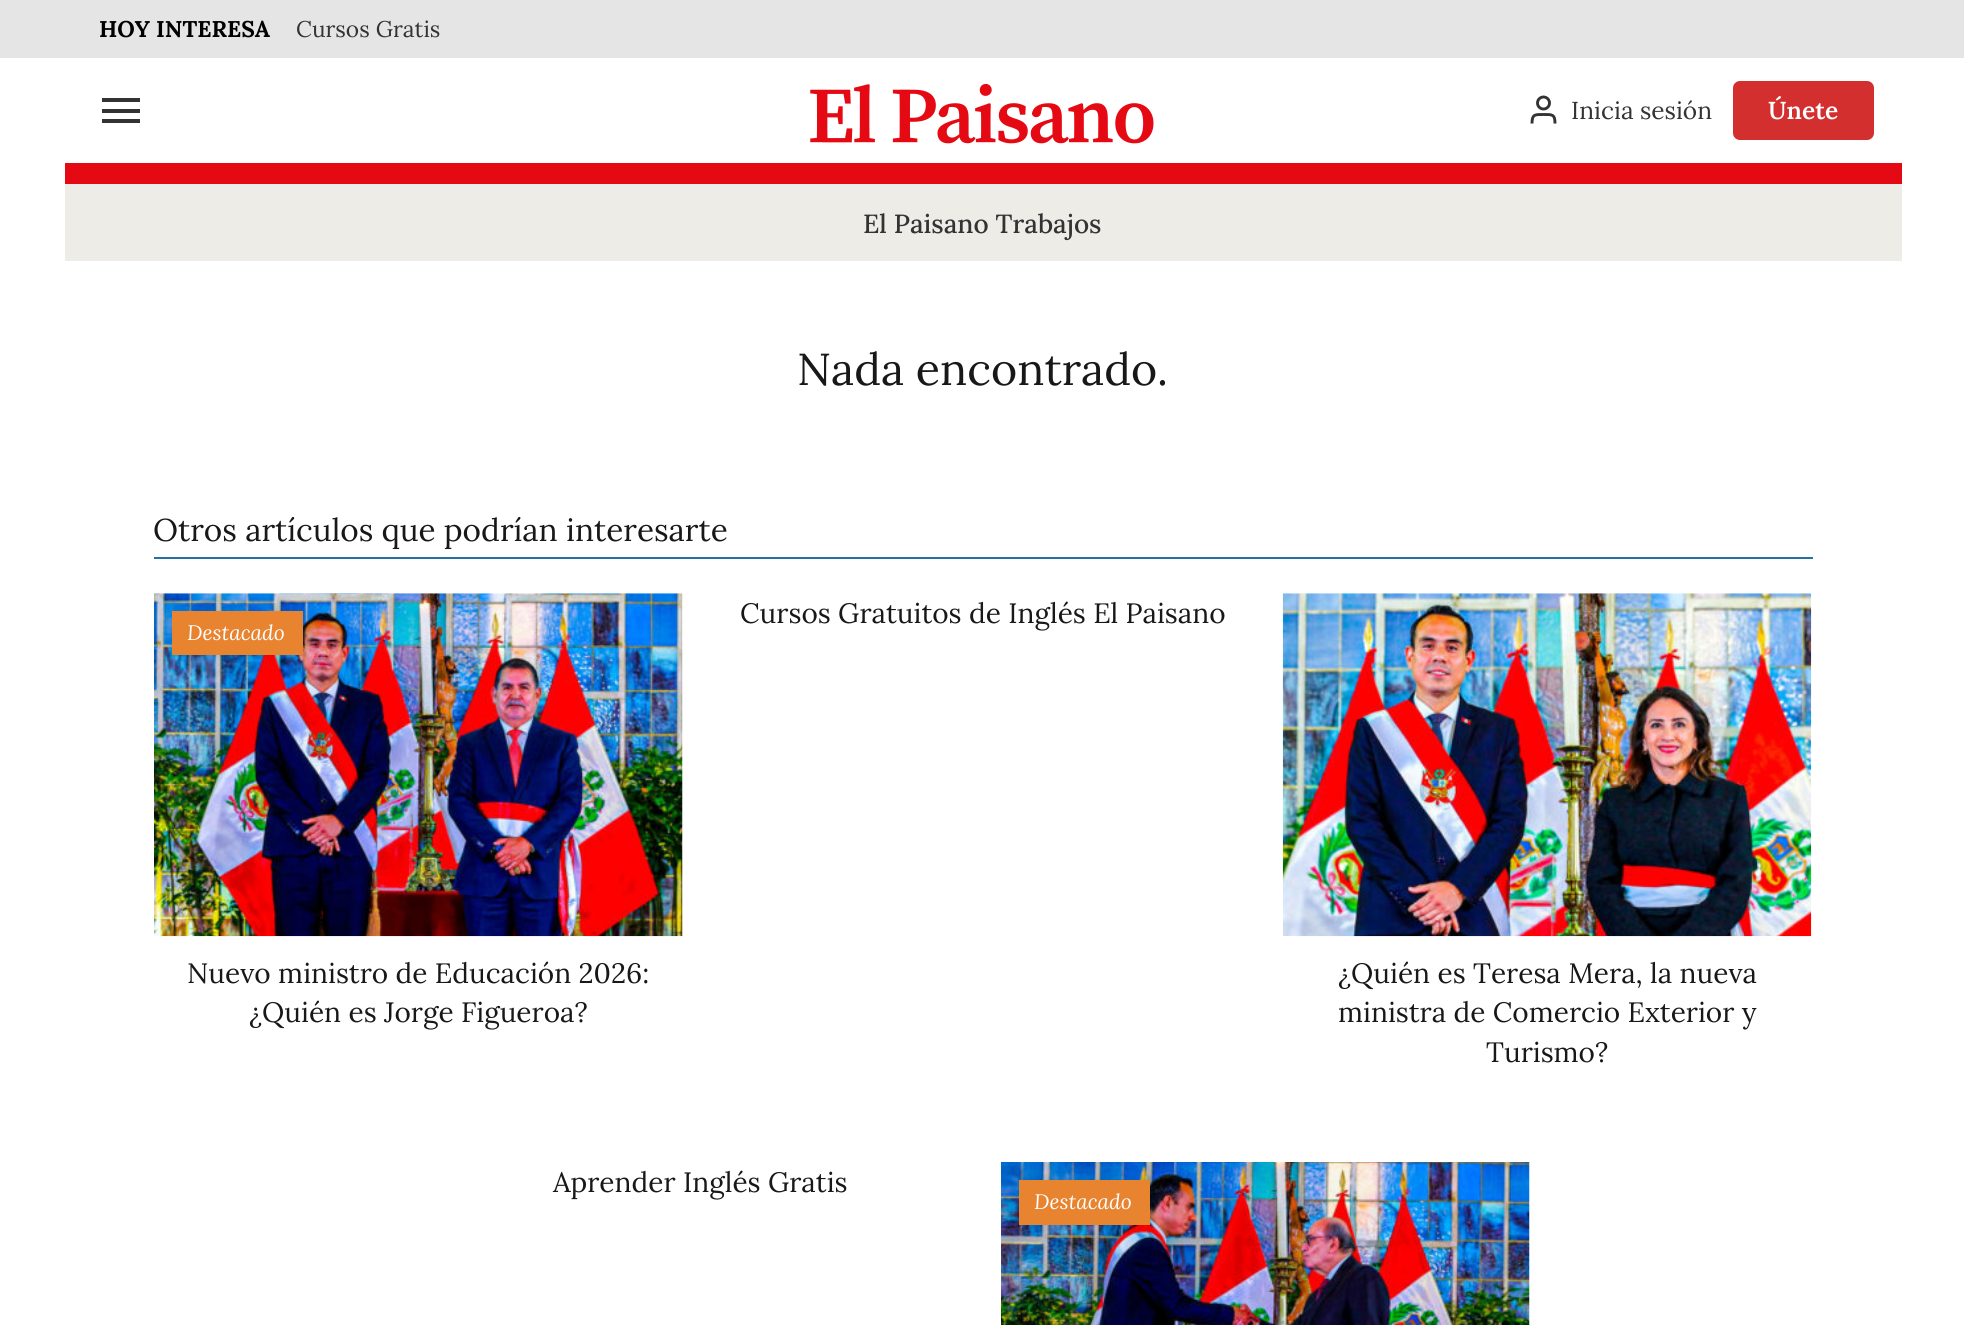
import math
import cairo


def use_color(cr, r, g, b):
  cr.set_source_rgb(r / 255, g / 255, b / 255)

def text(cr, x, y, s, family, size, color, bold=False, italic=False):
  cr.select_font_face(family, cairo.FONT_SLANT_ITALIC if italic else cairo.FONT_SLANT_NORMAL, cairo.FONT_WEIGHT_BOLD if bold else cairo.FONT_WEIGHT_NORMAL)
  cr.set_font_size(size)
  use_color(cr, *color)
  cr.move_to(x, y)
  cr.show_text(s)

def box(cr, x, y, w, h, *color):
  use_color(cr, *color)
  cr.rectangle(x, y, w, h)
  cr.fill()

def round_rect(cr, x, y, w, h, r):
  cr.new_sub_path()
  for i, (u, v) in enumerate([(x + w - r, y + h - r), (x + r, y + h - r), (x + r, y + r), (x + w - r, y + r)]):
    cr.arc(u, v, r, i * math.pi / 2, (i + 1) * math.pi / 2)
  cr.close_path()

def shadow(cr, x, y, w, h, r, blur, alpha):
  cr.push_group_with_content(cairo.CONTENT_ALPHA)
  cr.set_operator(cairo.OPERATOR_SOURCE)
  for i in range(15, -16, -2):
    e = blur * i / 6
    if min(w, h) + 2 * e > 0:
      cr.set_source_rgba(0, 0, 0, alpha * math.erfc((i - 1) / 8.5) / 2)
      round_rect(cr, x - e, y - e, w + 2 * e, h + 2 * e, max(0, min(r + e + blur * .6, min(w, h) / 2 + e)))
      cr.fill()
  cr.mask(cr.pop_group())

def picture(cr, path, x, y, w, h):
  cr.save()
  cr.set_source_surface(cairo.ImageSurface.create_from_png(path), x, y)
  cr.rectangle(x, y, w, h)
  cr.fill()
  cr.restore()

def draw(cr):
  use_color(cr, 255, 255, 255)
  cr.paint()
  box(cr, 0, 0, 1964, 58, 229, 229, 229)
  box(cr, 65, 163, 1837, 21, 229, 9, 20)
  box(cr, 102, 98, 38, 4, 51, 51, 51)
  box(cr, 102, 109, 38, 4, 51, 51, 51)
  box(cr, 102, 119, 38, 4, 51, 51, 51)
  picture(cr, "img_01.png", 810, 84, 344, 60)
  cr.new_path()
  cr.move_to(1555, 123.5)
  cr.curve_to(1555, 114, 1552, 114.5, 1543.5, 114.5)
  cr.curve_to(1535, 114.5, 1532, 114, 1532, 123.5)
  cr.set_line_width(2.9)
  cr.stroke()
  cr.arc(1543.5, 103, 6, 0, 2 * math.pi)
  cr.stroke()
  use_color(cr, 211, 47, 47)
  round_rect(cr, 1733, 81, 141, 59, 7)
  cr.fill()
  box(cr, 65, 184, 1837, 77, 238, 236, 231)
  box(cr, 154, 557, 1659, 2, 36, 113, 163)
  picture(cr, "img_02.png", 154, 593, 529, 344)
  use_color(cr, 0, 0, 0)
  shadow(cr, 172, 611, 131, 44, 0, 4.5, 0.1)
  box(cr, 172, 611, 131, 44, 232, 131, 48)
  picture(cr, "img_03.png", 1282, 593, 530, 344)
  picture(cr, "img_04.png", 1001, 1162, 529, 163)
  use_color(cr, 0, 0, 0)
  shadow(cr, 1019, 1180, 131, 45, 0, 4.5, 0.1)
  box(cr, 1019, 1180, 131, 45, 232, 131, 48)
  text(cr, 99, 37, "HOY INTERESA", "Lora", 22.75, (0, 0, 0), bold=True)
  text(cr, 296, 37, "Cursos Gratis", "Lora", 22.75, (51, 51, 51))
  text(cr, 1571, 119, "Inicia sesión", "Lora", 24.5, (51, 51, 51))
  text(cr, 1768, 119, "Únete", "Lora SemiBold", 24.5, (255, 255, 255))
  text(cr, 863, 233, "El Paisano Trabajos", "Lora Medium", 26.25, (51, 51, 51))
  text(cr, 797, 385, "Nada encontrado.", "Lora", 44.75, (24, 24, 24))
  text(cr, 153, 541, "Otros artículos que podrían interesarte", "Lora", 31.5, (24, 24, 24))
  text(cr, 740, 623, "Cursos Gratuitos de Inglés El Paisano", "Lora", 28, (24, 24, 24))
  text(cr, 187, 640, "Destacado", "Lora", 21, (255, 255, 255), italic=True)
  text(cr, 187, 983, "Nuevo ministro de Educación 2026:", "Lora", 28, (24, 24, 24))
  text(cr, 249, 1022, "¿Quién es Jorge Figueroa?", "Lora", 28, (24, 24, 24))
  text(cr, 1338, 983, "¿Quién es Teresa Mera, la nueva", "Lora", 28, (24, 24, 24))
  text(cr, 1338, 1022, "ministra de Comercio Exterior y", "Lora", 28, (24, 24, 24))
  text(cr, 1486, 1062, "Turismo?", "Lora", 28, (24, 24, 24))
  text(cr, 553, 1192, "Aprender Inglés Gratis", "Lora", 28, (24, 24, 24))
  text(cr, 1034, 1209, "Destacado", "Lora", 21, (255, 255, 255), italic=True)


surface = cairo.ImageSurface(cairo.FORMAT_RGB24, 1964, 1325)
cr = cairo.Context(surface)
options = cairo.FontOptions()
options.set_hint_metrics(cairo.HINT_METRICS_OFF)
options.set_hint_style(cairo.HINT_STYLE_NONE)
cr.set_font_options(options)
cr.set_miter_limit(4)
draw(cr)
surface.write_to_png("out.png")
